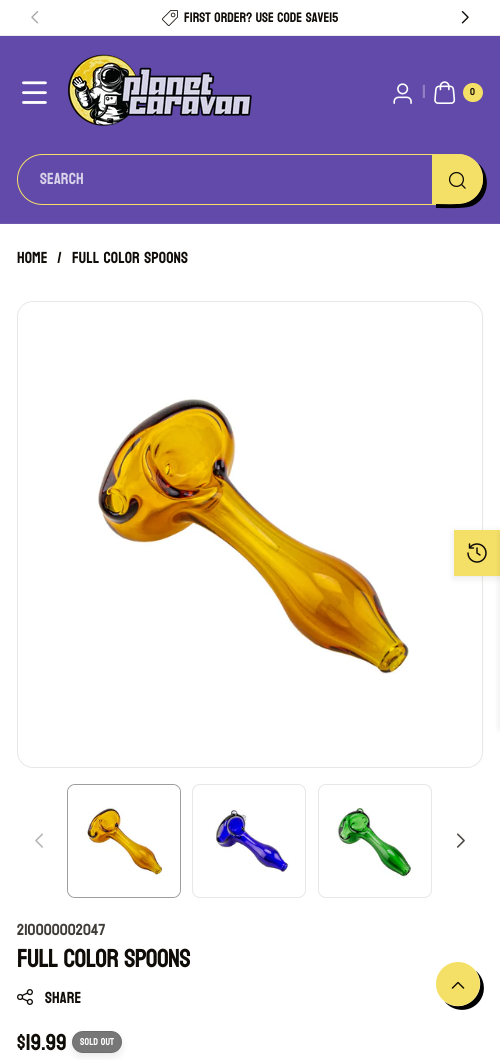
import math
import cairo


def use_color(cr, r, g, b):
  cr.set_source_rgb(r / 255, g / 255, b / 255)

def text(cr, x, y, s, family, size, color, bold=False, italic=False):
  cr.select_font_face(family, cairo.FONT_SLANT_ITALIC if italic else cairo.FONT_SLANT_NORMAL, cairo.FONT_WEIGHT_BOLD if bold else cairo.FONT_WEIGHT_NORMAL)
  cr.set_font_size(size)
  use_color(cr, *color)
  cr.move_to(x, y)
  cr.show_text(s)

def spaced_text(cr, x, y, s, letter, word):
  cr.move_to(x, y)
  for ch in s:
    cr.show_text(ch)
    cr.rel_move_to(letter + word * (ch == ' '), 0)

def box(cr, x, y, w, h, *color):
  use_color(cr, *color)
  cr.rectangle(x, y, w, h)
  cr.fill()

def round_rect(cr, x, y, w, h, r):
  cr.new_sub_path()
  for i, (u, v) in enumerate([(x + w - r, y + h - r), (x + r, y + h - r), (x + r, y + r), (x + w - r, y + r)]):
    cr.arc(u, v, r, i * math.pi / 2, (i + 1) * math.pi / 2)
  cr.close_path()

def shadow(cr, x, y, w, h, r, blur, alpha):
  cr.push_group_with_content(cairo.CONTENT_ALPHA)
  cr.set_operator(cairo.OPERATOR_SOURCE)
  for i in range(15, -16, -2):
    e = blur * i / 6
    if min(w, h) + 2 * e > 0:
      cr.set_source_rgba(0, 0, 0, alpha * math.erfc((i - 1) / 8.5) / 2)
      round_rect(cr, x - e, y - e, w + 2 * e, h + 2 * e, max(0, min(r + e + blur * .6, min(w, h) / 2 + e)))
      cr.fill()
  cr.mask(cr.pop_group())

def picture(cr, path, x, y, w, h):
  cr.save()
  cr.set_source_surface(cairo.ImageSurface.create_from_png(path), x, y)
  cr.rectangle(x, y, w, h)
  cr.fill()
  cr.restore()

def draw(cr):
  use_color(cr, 255, 255, 255)
  cr.paint()
  box(cr, 0, 35, 500, 1, 236, 236, 235)
  picture(cr, "img_01.png", 31, 11, 8, 13)
  picture(cr, "img_02.png", 162, 10, 16, 16)
  picture(cr, "img_03.png", 461, 11, 8, 13)
  box(cr, 0, 36, 500, 187, 97, 74, 169)
  box(cr, 0, 223, 500, 1, 110, 88, 176)
  picture(cr, "img_04.png", 22, 81, 25, 23)
  picture(cr, "img_05.png", 67, 54, 185, 72)
  picture(cr, "img_06.png", 393, 83, 19, 21)
  picture(cr, "img_07.png", 434, 81, 22, 23)
  use_color(cr, 245, 224, 103)
  round_rect(cr, 463, 83, 20, 19, 9.5)
  cr.fill()
  round_rect(cr, 17.5, 154.5, 465, 50, 25)
  cr.set_line_width(1)
  cr.stroke()
  use_color(cr, 0, 0, 0)
  cr.new_path()
  cr.move_to(436, 204)
  cr.line_to(436, 208)
  cr.curve_to(445, 208, 464, 209, 472, 206)
  cr.curve_to(489, 199, 492, 175, 478, 163)
  cr.curve_to(489, 178, 481, 200, 463, 203)
  cr.curve_to(455, 205, 444, 204, 436, 204)
  cr.close_path()
  cr.fill()
  use_color(cr, 245, 224, 103)
  cr.new_path()
  cr.move_to(432, 154)
  cr.line_to(458, 154)
  cr.curve_to(472, 154, 483, 165, 483, 179)
  cr.curve_to(483, 193, 472, 204, 458, 204)
  cr.line_to(432, 204)
  cr.close_path()
  cr.fill()
  picture(cr, "img_08.png", 448, 171, 18, 18)
  round_rect(cr, 17.5, 301.5, 465, 466, 15.5)
  use_color(cr, 231, 231, 230)
  cr.stroke()
  picture(cr, "img_09.png", 97, 398, 312, 276)
  picture(cr, "img_10.png", 35, 833, 8, 15)
  round_rect(cr, 67.5, 784.5, 113, 113, 7.5)
  use_color(cr, 159, 158, 156)
  cr.stroke()
  picture(cr, "img_11.png", 68, 785, 112, 112)
  round_rect(cr, 192.5, 784.5, 113, 113, 7.5)
  use_color(cr, 231, 231, 230)
  cr.stroke()
  picture(cr, "img_12.png", 215, 808, 75, 64)
  round_rect(cr, 318.5, 784.5, 113, 113, 7.5)
  cr.stroke()
  picture(cr, "img_13.png", 336, 807, 77, 72)
  picture(cr, "img_14.png", 457, 833, 8, 15)
  picture(cr, "img_15.png", 17, 989, 16, 16)
  use_color(cr, 0, 0, 0)
  shadow(cr, 72, 1035, 50, 22, 11, 4, 0.08)
  use_color(cr, 119, 119, 119)
  round_rect(cr, 72, 1031, 50, 22, 11)
  cr.fill()
  round_rect(cr, 72.5, 1031.5, 49, 21, 10.5)
  cr.set_source_rgba(0.063, 0.047, 0.031, 0.1)
  cr.stroke()
  use_color(cr, 16, 12, 8)
  shadow(cr, 454, 532, 46, 46, 0, 3.5, 0.1)
  box(cr, 454, 530, 46, 46, 245, 224, 103)
  picture(cr, "img_16.png", 467, 543, 20, 20)
  use_color(cr, 16, 12, 8)
  shadow(cr, 500, 532, 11, 197, 0, 3.5, 0.1)
  use_color(cr, 0, 0, 0)
  cr.new_path()
  cr.move_to(444.5, 1001.5)
  cr.curve_to(452.5, 1011.5, 468, 1013, 477.5, 1003.5)
  cr.curve_to(487, 994, 485.5, 978.5, 475.5, 970.5)
  cr.curve_to(491, 991, 465, 1017, 444.5, 1001.5)
  cr.close_path()
  cr.fill()
  use_color(cr, 245, 224, 103)
  cr.arc(458, 984, 22, 0, 2 * math.pi)
  cr.fill()
  picture(cr, "img_17.png", 451, 981, 14, 8)
  text(cr, 184, 22, "FIRST ORDER? USE CODE SAVE15", "Bayon", 13.75, (16, 12, 8))
  cr.set_font_size(19)
  use_color(cr, 144, 128, 195)
  spaced_text(cr, 422, 98, "|", 0.1, 0)
  cr.set_font_size(10)
  use_color(cr, 16, 12, 8)
  spaced_text(cr, 470, 95, "0", 0.1, 0)
  cr.set_font_size(16)
  use_color(cr, 216, 210, 234)
  spaced_text(cr, 40, 184, "Search", 0.1, 0)
  use_color(cr, 16, 12, 8)
  spaced_text(cr, 17, 263, "Home", 0.1, 0)
  spaced_text(cr, 57, 263, "/", 0.1, 0)
  spaced_text(cr, 72, 263, "Full Color Spoons", 0.1, 0)
  use_color(cr, 64, 61, 57)
  spaced_text(cr, 17, 935, "210000002047", 0.1, 0)
  cr.set_font_size(26)
  use_color(cr, 16, 12, 8)
  spaced_text(cr, 17, 967, "FULL COLOR SPOONS", -0.75, 0)
  cr.set_font_size(16)
  spaced_text(cr, 45, 1003, "SHARE", 0.1, 0)
  cr.set_font_size(23)
  spaced_text(cr, 17, 1050, "$19.99", 0.1, 0)
  cr.set_font_size(10)
  use_color(cr, 255, 255, 255)
  spaced_text(cr, 80, 1045, "SOLD OUT", 0.1, 0)


surface = cairo.ImageSurface(cairo.FORMAT_RGB24, 500, 1060)
cr = cairo.Context(surface)
options = cairo.FontOptions()
options.set_hint_metrics(cairo.HINT_METRICS_OFF)
options.set_hint_style(cairo.HINT_STYLE_NONE)
cr.set_font_options(options)
cr.set_miter_limit(4)
draw(cr)
surface.write_to_png("out.png")
